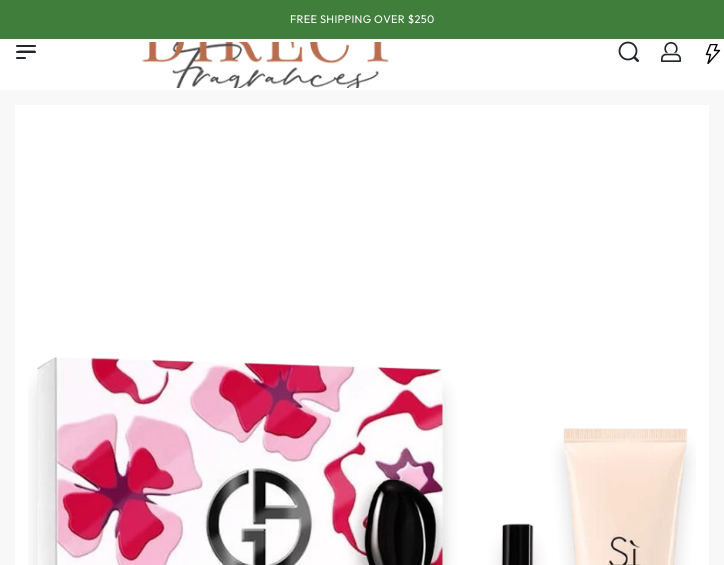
import math
import cairo


def use_color(cr, r, g, b):
  cr.set_source_rgb(r / 255, g / 255, b / 255)

def spaced_text(cr, x, y, s, letter, word):
  cr.move_to(x, y)
  for ch in s:
    cr.show_text(ch)
    cr.rel_move_to(letter + word * (ch == ' '), 0)

def box(cr, x, y, w, h, *color):
  use_color(cr, *color)
  cr.rectangle(x, y, w, h)
  cr.fill()

def round_rect(cr, x, y, w, h, r):
  cr.new_sub_path()
  for i, (u, v) in enumerate([(x + w - r, y + h - r), (x + r, y + h - r), (x + r, y + r), (x + w - r, y + r)]):
    cr.arc(u, v, r, i * math.pi / 2, (i + 1) * math.pi / 2)
  cr.close_path()

def picture(cr, path, x, y, w, h):
  cr.save()
  cr.set_source_surface(cairo.ImageSurface.create_from_png(path), x, y)
  cr.rectangle(x, y, w, h)
  cr.fill()
  cr.restore()

def draw(cr):
  use_color(cr, 248, 248, 248)
  cr.paint()
  box(cr, 0, 0, 724, 39, 64, 126, 59)
  box(cr, 0, 39, 724, 51, 255, 255, 255)
  use_color(cr, 34, 38, 42)
  round_rect(cr, 16, 45, 20, 2, 1)
  cr.fill()
  round_rect(cr, 16, 51, 20, 2, 1)
  cr.fill()
  round_rect(cr, 16, 57, 10, 2, 1)
  cr.fill()
  cr.new_path()
  cr.move_to(18.5, 51.5)
  cr.line_to(35, 51.5)
  cr.close_path()
  cr.set_line_width(1.9)
  cr.set_line_cap(cairo.LINE_CAP_SQUARE)
  cr.stroke()
  picture(cr, "img_01.png", 142, 42, 247, 46)
  picture(cr, "img_02.png", 618, 41, 21, 21)
  picture(cr, "img_03.png", 661, 42, 20, 20)
  cr.save()
  cr.rectangle(703, 44, 20, 20)
  cr.clip()
  cr.new_path()
  cr.move_to(710.5, 44.5)
  cr.line_to(717, 44.5)
  cr.line_to(714.5, 50.5)
  cr.line_to(719.5, 50.5)
  cr.line_to(708, 63.5)
  cr.line_to(710.5, 54.5)
  cr.line_to(706.5, 54.5)
  cr.close_path()
  use_color(cr, 0, 0, 0)
  cr.set_line_width(1.4)
  cr.set_line_cap(cairo.LINE_CAP_BUTT)
  cr.set_line_join(cairo.LINE_JOIN_ROUND)
  cr.stroke()
  cr.restore()
  box(cr, 15, 105, 694, 460, 255, 255, 255)
  picture(cr, "img_04.png", 28, 357, 668, 208)
  cr.select_font_face("Outfit Thin")
  cr.set_font_size(11)
  spaced_text(cr, 290, 23, "FREE SHIPPING OVER $250", 0.3, 0)


surface = cairo.ImageSurface(cairo.FORMAT_RGB24, 724, 565)
cr = cairo.Context(surface)
options = cairo.FontOptions()
options.set_hint_metrics(cairo.HINT_METRICS_OFF)
options.set_hint_style(cairo.HINT_STYLE_NONE)
cr.set_font_options(options)
cr.set_miter_limit(4)
draw(cr)
surface.write_to_png("out.png")
